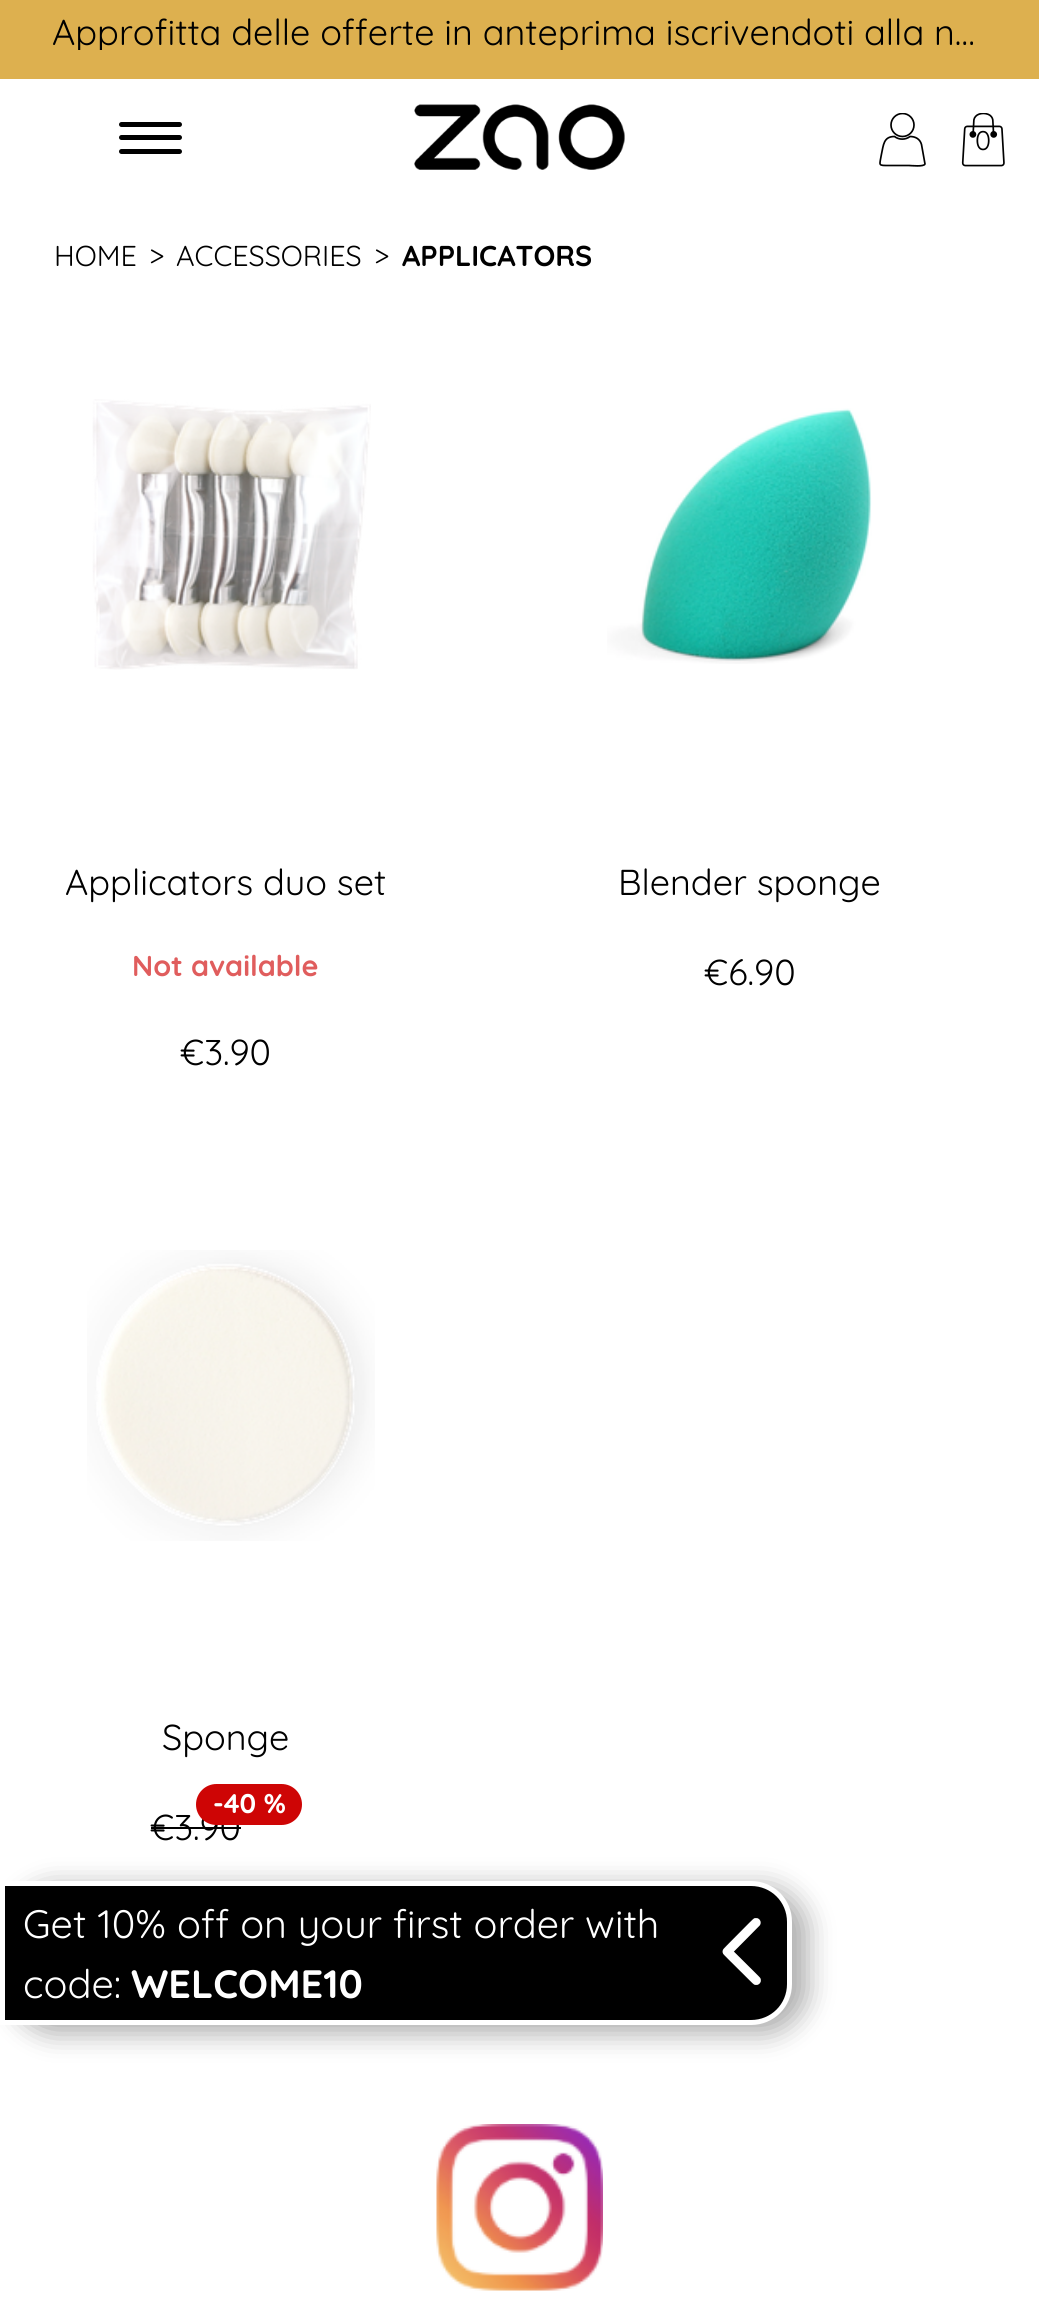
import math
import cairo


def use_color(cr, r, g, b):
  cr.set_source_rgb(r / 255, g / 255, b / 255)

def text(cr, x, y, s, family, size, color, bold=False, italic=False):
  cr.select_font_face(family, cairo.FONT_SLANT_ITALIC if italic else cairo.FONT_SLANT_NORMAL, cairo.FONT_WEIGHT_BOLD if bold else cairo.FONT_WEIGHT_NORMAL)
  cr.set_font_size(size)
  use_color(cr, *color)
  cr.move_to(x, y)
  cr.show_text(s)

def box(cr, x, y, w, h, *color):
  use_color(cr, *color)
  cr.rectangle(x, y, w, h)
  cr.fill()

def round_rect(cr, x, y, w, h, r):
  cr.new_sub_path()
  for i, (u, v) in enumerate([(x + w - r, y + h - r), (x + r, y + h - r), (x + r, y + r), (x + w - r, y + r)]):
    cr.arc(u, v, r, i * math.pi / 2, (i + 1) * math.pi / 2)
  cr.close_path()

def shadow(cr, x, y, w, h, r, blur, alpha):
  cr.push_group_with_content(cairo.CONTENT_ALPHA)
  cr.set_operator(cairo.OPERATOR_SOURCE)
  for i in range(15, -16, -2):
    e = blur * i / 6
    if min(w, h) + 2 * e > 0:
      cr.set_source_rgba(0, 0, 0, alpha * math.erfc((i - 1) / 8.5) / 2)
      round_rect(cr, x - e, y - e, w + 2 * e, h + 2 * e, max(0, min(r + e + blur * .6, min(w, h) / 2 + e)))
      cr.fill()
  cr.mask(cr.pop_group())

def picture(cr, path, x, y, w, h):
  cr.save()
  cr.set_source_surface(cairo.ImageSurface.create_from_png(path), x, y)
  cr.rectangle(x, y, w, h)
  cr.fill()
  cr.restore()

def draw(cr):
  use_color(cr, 255, 255, 255)
  cr.paint()
  box(cr, 0, 0, 1039, 79, 221, 176, 79)
  use_color(cr, 0, 0, 0)
  round_rect(cr, 119, 122, 63, 5, 2.5)
  cr.fill()
  round_rect(cr, 119, 135, 63, 5, 2.5)
  cr.fill()
  round_rect(cr, 119, 149, 63, 5, 2.5)
  cr.fill()
  picture(cr, "img_01.png", 414, 104, 211, 66)
  cr.new_path()
  cr.move_to(921.5, 144.5)
  cr.curve_to(920, 139, 915.5, 136.5, 910, 136.5)
  cr.curve_to(905.5, 140, 899, 140, 894.5, 136.5)
  cr.curve_to(883.5, 136.5, 883.5, 145, 881.5, 154)
  cr.curve_to(879.5, 166, 877.5, 165.5, 889.5, 165.5)
  cr.line_to(909, 165.5)
  cr.curve_to(911, 165.5, 924, 167, 925, 164)
  cr.close_path()
  cr.set_line_width(1.7)
  cr.stroke()
  cr.save()
  cr.rectangle(875, 113, 54, 54)
  cr.clip()
  cr.arc(902.5, 125, 11.5, 0, 2 * math.pi)
  cr.stroke()
  cr.restore()
  picture(cr, "img_02.png", 961, 113, 44, 54)
  picture(cr, "img_03.png", 92, 399, 279, 271)
  picture(cr, "img_04.png", 607, 408, 265, 256)
  picture(cr, "img_05.png", 87, 1250, 288, 291)
  box(cr, 151, 1827, 90, 2, 0, 0, 0)
  use_color(cr, 0, 0, 0)
  shadow(cr, 11, 1886, 797, 148, 43, 13.5, 0.32)
  use_color(cr, 0, 0, 0)
  cr.new_path()
  cr.move_to(2.5, 1883.5)
  cr.line_to(751, 1883.5)
  cr.curve_to(772.5, 1883.5, 789.5, 1900.5, 789.5, 1922)
  cr.line_to(789.5, 1984)
  cr.curve_to(789.5, 2005.5, 772.5, 2022.5, 751, 2022.5)
  cr.line_to(2.5, 2022.5)
  cr.close_path()
  cr.fill_preserve()
  use_color(cr, 255, 255, 255)
  cr.set_line_width(5)
  cr.stroke()
  picture(cr, "img_06.png", 722, 1918, 39, 67)
  picture(cr, "img_07.png", 436, 2124, 167, 167)
  cr.save()
  cr.rectangle(52, 14, 936, 36)
  cr.clip()
  text(cr, 52, 45, "Approfitta delle offerte in anteprima iscrivendoti alla n…", "Quicksand", 36, (0, 0, 0))
  cr.restore()
  text(cr, 975, 150, "0", "Quicksand", 27, (0, 0, 0))
  text(cr, 54, 266, "HOME", "Quicksand", 28.75, (0, 0, 0))
  text(cr, 149, 266, ">", "Quicksand", 28.75, (0, 0, 0))
  text(cr, 176, 266, "ACCESSORIES", "Quicksand", 28.75, (0, 0, 0))
  text(cr, 374, 266, ">", "Quicksand", 28.75, (0, 0, 0))
  text(cr, 402, 266, "APPLICATORS", "Quicksand", 28.75, (0, 0, 0), bold=True)
  text(cr, 65, 895, "Applicators duo set", "Quicksand", 36, (0, 0, 0))
  text(cr, 132, 976, "Not available", "Quicksand", 28.75, (224, 93, 93), bold=True)
  text(cr, 180, 1065, "€3.90", "Quicksand", 36, (0, 0, 0))
  text(cr, 618, 895, "Blender sponge", "Quicksand", 36, (0, 0, 0))
  text(cr, 704, 985, "€6.90", "Quicksand", 36, (0, 0, 0))
  text(cr, 162, 1750, "Sponge", "Quicksand", 36, (0, 0, 0))
  text(cr, 150, 1840, "€3.90", "Quicksand", 36, (0, 0, 0))
  use_color(cr, 206, 5, 5)
  round_rect(cr, 196, 1784, 106, 41, 20.5)
  cr.fill()
  text(cr, 213, 1813, "-40 %", "Quicksand", 27, (255, 255, 255), bold=True)
  text(cr, 23, 1938, "Get 10% off on your first order with", "Quicksand", 39.6, (255, 255, 255))
  text(cr, 23, 1998, "code:", "Quicksand", 39.6, (255, 255, 255))
  text(cr, 131, 1998, "WELCOME10", "Quicksand", 39.6, (255, 255, 255), bold=True)


surface = cairo.ImageSurface(cairo.FORMAT_RGB24, 1039, 2309)
cr = cairo.Context(surface)
options = cairo.FontOptions()
options.set_hint_metrics(cairo.HINT_METRICS_OFF)
options.set_hint_style(cairo.HINT_STYLE_NONE)
cr.set_font_options(options)
cr.set_miter_limit(4)
draw(cr)
surface.write_to_png("out.png")
